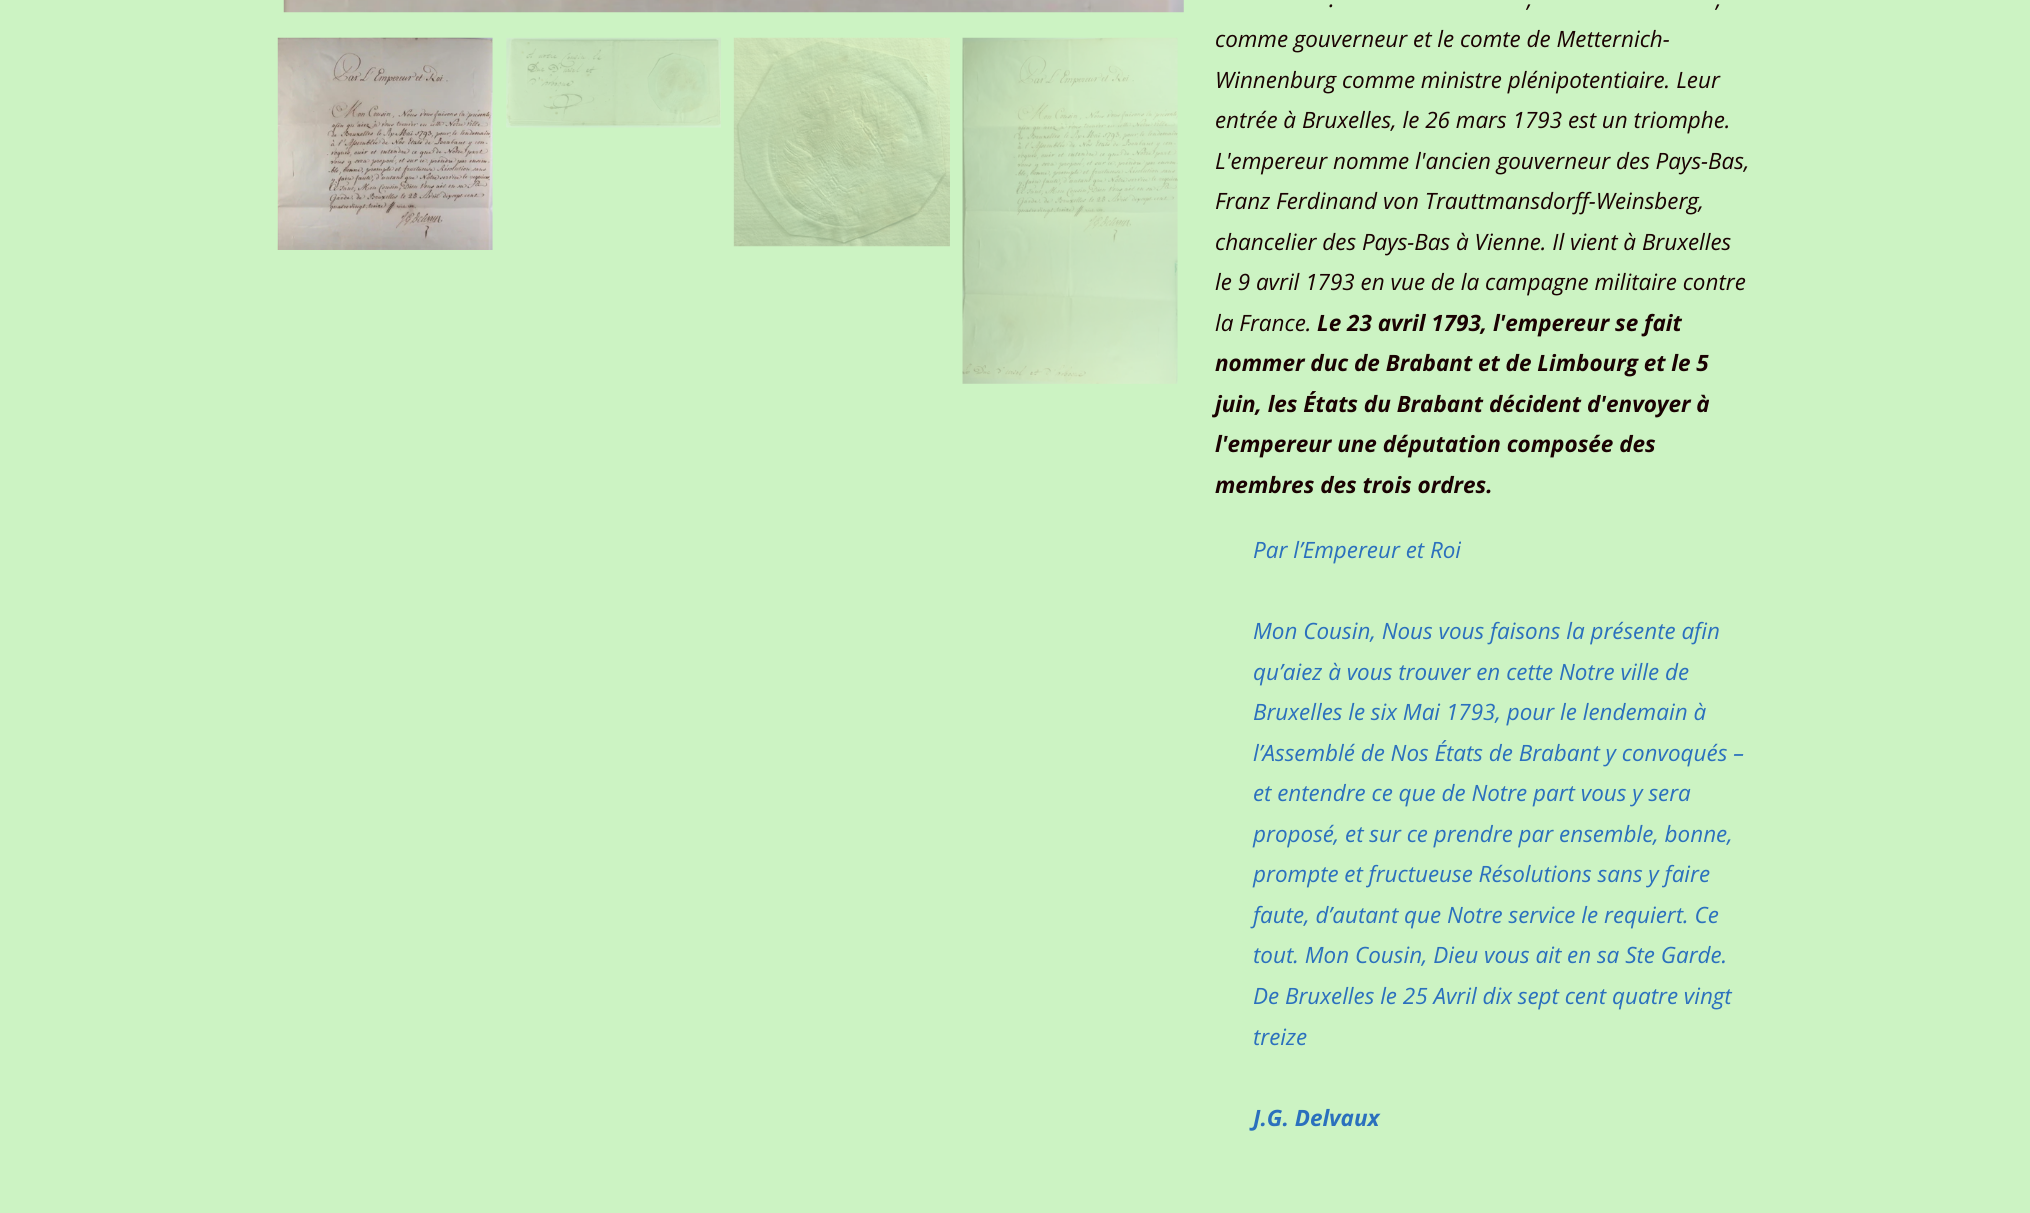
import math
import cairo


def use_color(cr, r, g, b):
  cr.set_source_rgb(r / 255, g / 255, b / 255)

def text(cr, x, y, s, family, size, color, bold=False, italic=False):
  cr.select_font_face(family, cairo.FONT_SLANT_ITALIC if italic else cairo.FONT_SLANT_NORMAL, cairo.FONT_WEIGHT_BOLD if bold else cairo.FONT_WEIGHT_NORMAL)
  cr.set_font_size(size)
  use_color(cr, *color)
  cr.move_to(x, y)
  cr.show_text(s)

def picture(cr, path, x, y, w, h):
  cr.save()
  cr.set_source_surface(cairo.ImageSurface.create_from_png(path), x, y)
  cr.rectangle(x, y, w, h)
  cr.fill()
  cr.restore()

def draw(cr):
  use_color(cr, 204, 243, 195)
  cr.paint()
  picture(cr, "img_01.png", 283, 0, 901, 13)
  picture(cr, "img_02.png", 277, 37, 216, 213)
  picture(cr, "img_03.png", 506, 37, 215, 91)
  picture(cr, "img_04.png", 733, 37, 217, 210)
  picture(cr, "img_05.png", 962, 37, 216, 347)
  text(cr, 1329, 7, ".", "Open Sans", 22.5, (26, 2, 2), italic=True)
  text(cr, 1527, 7, ",", "Open Sans", 22.5, (26, 2, 2), italic=True)
  text(cr, 1716, 7, ",", "Open Sans", 22.5, (26, 2, 2), italic=True)
  text(cr, 1215, 47, "comme gouverneur et le comte de Metternich-", "Open Sans", 22.5, (26, 2, 2), italic=True)
  text(cr, 1215, 88, "Winnenburg comme ministre plénipotentiaire. Leur", "Open Sans", 22.5, (26, 2, 2), italic=True)
  text(cr, 1215, 128, "entrée à Bruxelles, le 26 mars 1793 est un triomphe.", "Open Sans", 22.5, (26, 2, 2), italic=True)
  text(cr, 1215, 169, "L'empereur nomme l'ancien gouverneur des Pays-Bas,", "Open Sans", 22.5, (26, 2, 2), italic=True)
  text(cr, 1215, 209, "Franz Ferdinand von Trauttmansdorff-Weinsberg,", "Open Sans", 22.5, (26, 2, 2), italic=True)
  text(cr, 1215, 250, "chancelier des Pays-Bas à Vienne. Il vient à Bruxelles", "Open Sans", 22.5, (26, 2, 2), italic=True)
  text(cr, 1215, 290, "le 9 avril 1793 en vue de la campagne militaire contre", "Open Sans", 22.5, (26, 2, 2), italic=True)
  text(cr, 1215, 331, "la France.", "Open Sans", 22.5, (26, 2, 2), italic=True)
  text(cr, 1317, 331, "Le 23 avril 1793, l'empereur se fait", "Open Sans", 22.5, (26, 2, 2), bold=True, italic=True)
  text(cr, 1215, 371, "nommer duc de Brabant et de Limbourg et le 5", "Open Sans", 22.5, (26, 2, 2), bold=True, italic=True)
  text(cr, 1215, 412, "juin, les États du Brabant décident d'envoyer à", "Open Sans", 22.5, (26, 2, 2), bold=True, italic=True)
  text(cr, 1215, 452, "l'empereur une députation composée des", "Open Sans", 22.5, (26, 2, 2), bold=True, italic=True)
  text(cr, 1215, 493, "membres des trois ordres.", "Open Sans", 22.5, (26, 2, 2), bold=True, italic=True)
  text(cr, 1253, 558, "Par l’Empereur et Roi", "Open Sans", 22.5, (43, 112, 189), italic=True)
  text(cr, 1253, 639, "Mon Cousin, Nous vous faisons la présente afin", "Open Sans", 22.5, (43, 112, 189), italic=True)
  text(cr, 1253, 680, "qu’aiez à vous trouver en cette Notre ville de", "Open Sans", 22.5, (43, 112, 189), italic=True)
  text(cr, 1253, 720, "Bruxelles le six Mai 1793, pour le lendemain à", "Open Sans", 22.5, (43, 112, 189), italic=True)
  text(cr, 1253, 761, "l’Assemblé de Nos États de Brabant y convoqués –", "Open Sans", 22.5, (43, 112, 189), italic=True)
  text(cr, 1253, 801, "et entendre ce que de Notre part vous y sera", "Open Sans", 22.5, (43, 112, 189), italic=True)
  text(cr, 1253, 842, "proposé, et sur ce prendre par ensemble, bonne,", "Open Sans", 22.5, (43, 112, 189), italic=True)
  text(cr, 1253, 882, "prompte et fructueuse Résolutions sans y faire", "Open Sans", 22.5, (43, 112, 189), italic=True)
  text(cr, 1253, 923, "faute, d’autant que Notre service le requiert. Ce", "Open Sans", 22.5, (43, 112, 189), italic=True)
  text(cr, 1253, 963, "tout. Mon Cousin, Dieu vous ait en sa Ste Garde.", "Open Sans", 22.5, (43, 112, 189), italic=True)
  text(cr, 1253, 1004, "De Bruxelles le 25 Avril dix sept cent quatre vingt", "Open Sans", 22.5, (43, 112, 189), italic=True)
  text(cr, 1253, 1045, "treize", "Open Sans", 22.5, (43, 112, 189), italic=True)
  text(cr, 1253, 1126, "J.G. Delvaux", "Open Sans", 22.5, (43, 112, 189), bold=True, italic=True)


surface = cairo.ImageSurface(cairo.FORMAT_RGB24, 2030, 1213)
cr = cairo.Context(surface)
options = cairo.FontOptions()
options.set_hint_metrics(cairo.HINT_METRICS_OFF)
options.set_hint_style(cairo.HINT_STYLE_NONE)
cr.set_font_options(options)
cr.set_miter_limit(4)
draw(cr)
surface.write_to_png("out.png")
